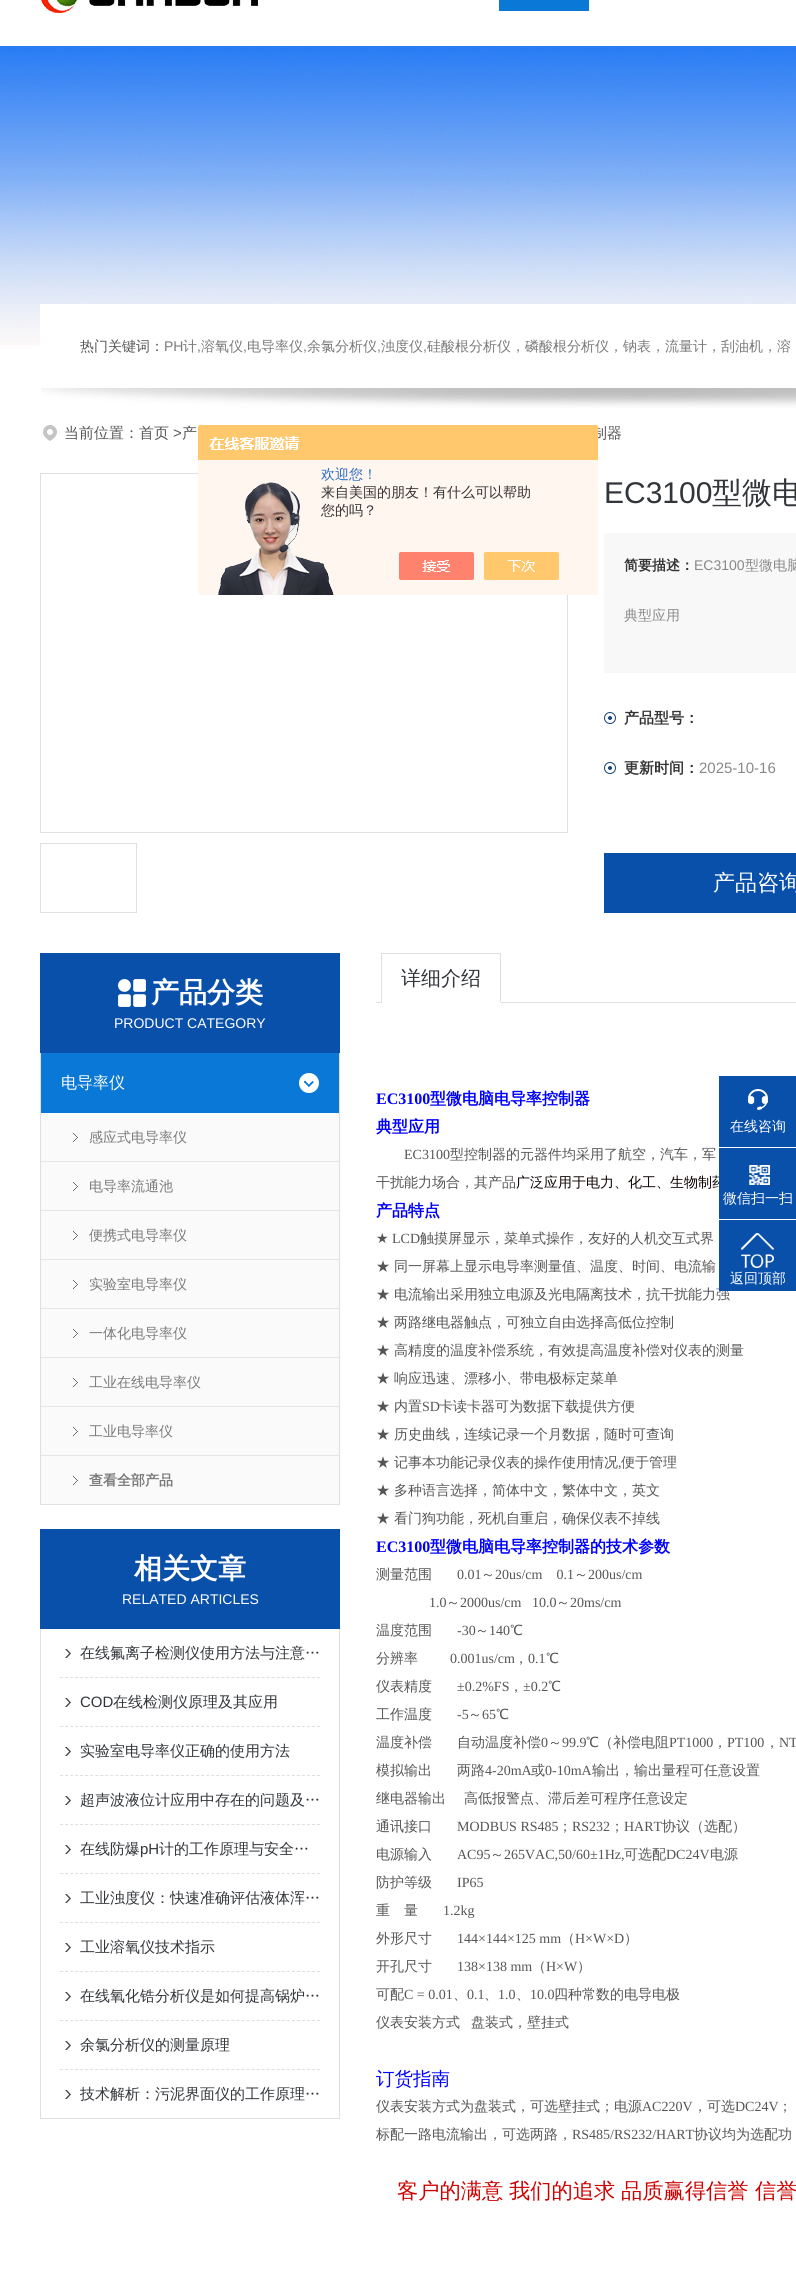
import math
import cairo


def use_color(cr, r, g, b):
  cr.set_source_rgb(r / 255, g / 255, b / 255)

def text(cr, x, y, s, family, size, color, bold=False, italic=False):
  cr.select_font_face(family, cairo.FONT_SLANT_ITALIC if italic else cairo.FONT_SLANT_NORMAL, cairo.FONT_WEIGHT_BOLD if bold else cairo.FONT_WEIGHT_NORMAL)
  cr.set_font_size(size)
  use_color(cr, *color)
  cr.move_to(x, y)
  cr.show_text(s)

def box(cr, x, y, w, h, *color):
  use_color(cr, *color)
  cr.rectangle(x, y, w, h)
  cr.fill()

def picture(cr, path, x, y, w, h):
  cr.save()
  cr.set_source_surface(cairo.ImageSurface.create_from_png(path), x, y)
  cr.rectangle(x, y, w, h)
  cr.fill()
  cr.restore()

def draw(cr):
  use_color(cr, 255, 255, 255)
  cr.paint()
  picture(cr, "img_01.png", 41, 0, 217, 13)
  box(cr, 499, 0, 90, 11, 10, 120, 215)
  picture(cr, "img_02.png", 0, 46, 796, 300)
  box(cr, 40, 304, 756, 42, 255, 255, 255)
  picture(cr, "img_03.png", 41, 388, 755, 20)
  picture(cr, "img_04.png", 43, 425, 14, 16)
  cr.rectangle(40.5, 473.5, 527, 359)
  use_color(cr, 223, 223, 223)
  cr.set_line_width(1)
  cr.stroke()
  cr.rectangle(40.5, 843.5, 96, 69)
  cr.stroke()
  box(cr, 604, 533, 192, 140, 248, 248, 248)
  picture(cr, "img_06.png", 604, 712, 12, 12)
  picture(cr, "img_06.png", 604, 762, 12, 12)
  box(cr, 604, 853, 192, 60, 9, 80, 170)
  box(cr, 40, 953, 300, 100, 9, 80, 170)
  picture(cr, "img_07.png", 118, 979, 28, 28)
  box(cr, 339, 1053, 1, 452, 223, 223, 223)
  box(cr, 40, 1053, 1, 452, 223, 223, 223)
  box(cr, 41, 1504, 298, 1, 223, 223, 223)
  box(cr, 41, 1053, 298, 60, 10, 120, 215)
  picture(cr, "img_08.png", 299, 1073, 20, 20)
  box(cr, 41, 1113, 298, 391, 250, 250, 250)
  picture(cr, "img_09.png", 73, 1133, 5, 9)
  picture(cr, "img_09.png", 73, 1182, 5, 9)
  box(cr, 41, 1161, 298, 1, 231, 229, 229)
  picture(cr, "img_09.png", 73, 1231, 5, 9)
  box(cr, 41, 1210, 298, 1, 231, 229, 229)
  picture(cr, "img_09.png", 73, 1280, 5, 9)
  box(cr, 41, 1259, 298, 1, 231, 229, 229)
  picture(cr, "img_09.png", 73, 1329, 5, 9)
  box(cr, 41, 1308, 298, 1, 231, 229, 229)
  picture(cr, "img_09.png", 73, 1378, 5, 9)
  box(cr, 41, 1357, 298, 1, 231, 229, 229)
  picture(cr, "img_09.png", 73, 1427, 5, 9)
  box(cr, 41, 1406, 298, 1, 231, 229, 229)
  picture(cr, "img_09.png", 73, 1476, 5, 9)
  box(cr, 41, 1455, 298, 1, 231, 229, 229)
  box(cr, 40, 1529, 300, 100, 9, 80, 170)
  box(cr, 339, 1629, 1, 490, 223, 223, 223)
  box(cr, 40, 2118, 300, 1, 223, 223, 223)
  box(cr, 40, 1629, 1, 490, 223, 223, 223)
  cr.new_path()
  cr.move_to(60, 1677.5)
  cr.line_to(320, 1677.5)
  cr.set_dash([3, 2.04])
  cr.stroke()
  picture(cr, "img_10.png", 65, 1649, 6, 9)
  cr.new_path()
  cr.move_to(60, 1726.5)
  cr.line_to(320, 1726.5)
  cr.stroke()
  picture(cr, "img_10.png", 65, 1698, 6, 9)
  cr.new_path()
  cr.move_to(60, 1775.5)
  cr.line_to(320, 1775.5)
  cr.stroke()
  picture(cr, "img_10.png", 65, 1747, 6, 9)
  cr.new_path()
  cr.move_to(60, 1824.5)
  cr.line_to(320, 1824.5)
  cr.stroke()
  picture(cr, "img_10.png", 65, 1796, 6, 9)
  cr.new_path()
  cr.move_to(60, 1873.5)
  cr.line_to(320, 1873.5)
  cr.stroke()
  picture(cr, "img_10.png", 65, 1845, 6, 9)
  cr.new_path()
  cr.move_to(60, 1922.5)
  cr.line_to(320, 1922.5)
  cr.stroke()
  picture(cr, "img_10.png", 65, 1894, 6, 9)
  cr.new_path()
  cr.move_to(60, 1971.5)
  cr.line_to(320, 1971.5)
  cr.stroke()
  picture(cr, "img_10.png", 65, 1943, 6, 9)
  cr.new_path()
  cr.move_to(60, 2020.5)
  cr.line_to(320, 2020.5)
  cr.stroke()
  picture(cr, "img_10.png", 65, 1992, 6, 9)
  cr.new_path()
  cr.move_to(60, 2069.5)
  cr.line_to(320, 2069.5)
  cr.stroke()
  picture(cr, "img_10.png", 65, 2041, 6, 9)
  picture(cr, "img_10.png", 65, 2090, 6, 9)
  box(cr, 376, 1002, 420, 1, 223, 223, 223)
  box(cr, 381, 953, 120, 1, 223, 223, 223)
  box(cr, 500, 953, 1, 50, 223, 223, 223)
  box(cr, 381, 1002, 120, 1, 255, 255, 255)
  box(cr, 381, 953, 1, 50, 223, 223, 223)
  box(cr, 719, 1076, 77, 71, 9, 80, 170)
  picture(cr, "img_11.png", 748, 1089, 20, 21)
  text(cr, 80, 351, "热门关键词：", "WenQuanYi Zen Hei Medium", 14, (85, 85, 85))
  text(cr, 164, 351, "PH", "Liberation Sans", 14, (121, 121, 121))
  text(cr, 183, 351, "计", "WenQuanYi Zen Hei Medium", 14, (121, 121, 121))
  text(cr, 197, 351, ",", "Liberation Sans", 14, (121, 121, 121))
  text(cr, 201, 351, "溶氧仪", "WenQuanYi Zen Hei Medium", 14, (121, 121, 121))
  text(cr, 243, 351, ",", "Liberation Sans", 14, (121, 121, 121))
  text(cr, 247, 351, "电导率仪", "WenQuanYi Zen Hei Medium", 14, (121, 121, 121))
  text(cr, 303, 351, ",", "Liberation Sans", 14, (121, 121, 121))
  text(cr, 307, 351, "余氯分析仪", "WenQuanYi Zen Hei Medium", 14, (121, 121, 121))
  text(cr, 377, 351, ",", "Liberation Sans", 14, (121, 121, 121))
  text(cr, 381, 351, "浊度仪", "WenQuanYi Zen Hei Medium", 14, (121, 121, 121))
  text(cr, 423, 351, ",", "Liberation Sans", 14, (121, 121, 121))
  text(cr, 427, 351, "硅酸根分析仪，磷酸根分析仪，钠表，流量计，刮油机，溶", "WenQuanYi Zen Hei Medium", 14, (121, 121, 121))
  text(cr, 64, 438, "当前位置：首页", "WenQuanYi Zen Hei Medium", 15, (85, 85, 85))
  text(cr, 173, 438, ">", "Liberation Sans", 15, (85, 85, 85))
  text(cr, 182, 438, "产", "WenQuanYi Zen Hei Medium", 15, (85, 85, 85))
  text(cr, 592, 438, "制器", "WenQuanYi Zen Hei Medium", 15, (85, 85, 85))
  picture(cr, "img_05.png", 198, 425, 400, 170)
  text(cr, 321, 479, "欢迎您！", "WenQuanYi Zen Hei Medium", 14, (46, 110, 198))
  text(cr, 321, 497, "来自美国的朋友！有什么可以帮助", "WenQuanYi Zen Hei Medium", 14, (51, 51, 51))
  text(cr, 321, 515, "您的吗？", "WenQuanYi Zen Hei Medium", 14, (51, 51, 51))
  text(cr, 604, 503, "EC3100", "Liberation Sans", 30, (50, 53, 58))
  text(cr, 712, 503, "型微电", "WenQuanYi Zen Hei Medium", 30, (50, 53, 58))
  text(cr, 624, 570, "简要描述：", "WenQuanYi Zen Hei", 14, (51, 51, 51), bold=True)
  text(cr, 694, 570, "EC3100", "Liberation Sans", 14, (136, 136, 136))
  text(cr, 745, 570, "型微电脑", "WenQuanYi Zen Hei Medium", 14, (136, 136, 136))
  text(cr, 624, 620, "典型应用", "WenQuanYi Zen Hei Medium", 14, (136, 136, 136))
  text(cr, 624, 723, "产品型号：", "WenQuanYi Zen Hei", 15, (51, 51, 51), bold=True)
  text(cr, 624, 773, "更新时间：", "WenQuanYi Zen Hei", 15, (51, 51, 51), bold=True)
  text(cr, 699, 773, "2025-10-16", "Liberation Sans", 15, (136, 136, 136))
  text(cr, 713, 890, "产品咨询", "WenQuanYi Zen Hei Medium", 22, (255, 255, 255))
  text(cr, 151, 1002, "产品分类", "WenQuanYi Zen Hei", 28, (255, 255, 255), bold=True)
  text(cr, 114, 1028, "PRODUCT CATEGORY", "Liberation Sans", 14, (255, 255, 255))
  text(cr, 61, 1088, "电导率仪", "WenQuanYi Zen Hei Medium", 16, (255, 255, 255))
  text(cr, 89, 1142, "感应式电导率仪", "WenQuanYi Zen Hei Medium", 14, (121, 121, 121))
  text(cr, 89, 1191, "电导率流通池", "WenQuanYi Zen Hei Medium", 14, (121, 121, 121))
  text(cr, 89, 1240, "便携式电导率仪", "WenQuanYi Zen Hei Medium", 14, (121, 121, 121))
  text(cr, 89, 1289, "实验室电导率仪", "WenQuanYi Zen Hei Medium", 14, (121, 121, 121))
  text(cr, 89, 1338, "一体化电导率仪", "WenQuanYi Zen Hei Medium", 14, (121, 121, 121))
  text(cr, 89, 1387, "工业在线电导率仪", "WenQuanYi Zen Hei Medium", 14, (121, 121, 121))
  text(cr, 89, 1436, "工业电导率仪", "WenQuanYi Zen Hei Medium", 14, (121, 121, 121))
  text(cr, 89, 1485, "查看全部产品", "WenQuanYi Zen Hei", 14, (121, 121, 121), bold=True)
  text(cr, 134, 1578, "相关文章", "WenQuanYi Zen Hei", 28, (255, 255, 255), bold=True)
  text(cr, 122, 1604, "RELATED ARTICLES", "Liberation Sans", 14, (255, 255, 255))
  text(cr, 80, 1658, "在线氟离子检测仪使用方法与注意…", "WenQuanYi Zen Hei Medium", 15, (50, 53, 58))
  text(cr, 80, 1707, "COD", "Liberation Sans", 15, (50, 53, 58))
  text(cr, 113, 1707, "在线检测仪原理及其应用", "WenQuanYi Zen Hei Medium", 15, (50, 53, 58))
  text(cr, 80, 1756, "实验室电导率仪正确的使用方法", "WenQuanYi Zen Hei Medium", 15, (50, 53, 58))
  text(cr, 80, 1805, "超声波液位计应用中存在的问题及…", "WenQuanYi Zen Hei Medium", 15, (50, 53, 58))
  text(cr, 80, 1854, "在线防爆", "WenQuanYi Zen Hei Medium", 15, (50, 53, 58))
  text(cr, 140, 1854, "pH", "Liberation Sans", 15, (50, 53, 58))
  text(cr, 159, 1854, "计的工作原理与安全…", "WenQuanYi Zen Hei Medium", 15, (50, 53, 58))
  text(cr, 80, 1903, "工业浊度仪：快速准确评估液体浑…", "WenQuanYi Zen Hei Medium", 15, (50, 53, 58))
  text(cr, 80, 1952, "工业溶氧仪技术指示", "WenQuanYi Zen Hei Medium", 15, (50, 53, 58))
  text(cr, 80, 2001, "在线氧化锆分析仪是如何提高锅炉…", "WenQuanYi Zen Hei Medium", 15, (50, 53, 58))
  text(cr, 80, 2050, "余氯分析仪的测量原理", "WenQuanYi Zen Hei Medium", 15, (50, 53, 58))
  text(cr, 80, 2099, "技术解析：污泥界面仪的工作原理…", "WenQuanYi Zen Hei Medium", 15, (50, 53, 58))
  text(cr, 401, 985, "详细介绍", "WenQuanYi Zen Hei Medium", 20, (50, 53, 58))
  text(cr, 376, 1104, "EC3100", "Liberation Serif", 16, (0, 0, 255), bold=True)
  text(cr, 430, 1104, "型微电脑电导率控制器", "WenQuanYi Zen Hei", 16, (0, 0, 255), bold=True)
  text(cr, 376, 1132, "典型应用", "WenQuanYi Zen Hei", 16, (0, 0, 255), bold=True)
  text(cr, 404, 1159, "EC3100", "Liberation Serif", 14, (85, 85, 85))
  text(cr, 450, 1159, "型控制器的元器件均采用了航空，汽车，军", "WenQuanYi Zen Hei Medium", 14, (85, 85, 85))
  text(cr, 376, 1187, "干扰能力场合，其产品", "WenQuanYi Zen Hei Medium", 14, (85, 85, 85))
  text(cr, 516, 1187, "广泛应用于电力、化工、生物制药", "WenQuanYi Zen Hei Medium", 14, (11, 0, 0))
  text(cr, 376, 1216, "产品特点", "WenQuanYi Zen Hei", 16, (0, 0, 255), bold=True)
  text(cr, 376, 1243, "★", "DejaVu Sans", 14, (85, 85, 85))
  text(cr, 392, 1243, "LCD", "Liberation Serif", 14, (85, 85, 85))
  text(cr, 420, 1243, "触摸屏显示，菜单式操作，友好的人机交互式界", "WenQuanYi Zen Hei Medium", 14, (85, 85, 85))
  text(cr, 376, 1271, "★", "WenQuanYi Zen Hei Medium", 14, (85, 85, 85))
  text(cr, 394, 1271, "同一屏幕上显示电导率测量值、温度、时间、电流输", "WenQuanYi Zen Hei Medium", 14, (85, 85, 85))
  text(cr, 376, 1299, "★", "WenQuanYi Zen Hei Medium", 14, (85, 85, 85))
  text(cr, 394, 1299, "电流输出采用独立电源及光电隔离技术，抗干扰能力强", "WenQuanYi Zen Hei Medium", 14, (85, 85, 85))
  text(cr, 376, 1327, "★", "WenQuanYi Zen Hei Medium", 14, (85, 85, 85))
  text(cr, 394, 1327, "两路继电器触点，可独立自由选择高低位控制", "WenQuanYi Zen Hei Medium", 14, (85, 85, 85))
  text(cr, 376, 1355, "★", "WenQuanYi Zen Hei Medium", 14, (85, 85, 85))
  text(cr, 394, 1355, "高精度的温度补偿系统，有效提高温度补偿对仪表的测量", "WenQuanYi Zen Hei Medium", 14, (85, 85, 85))
  text(cr, 376, 1383, "★", "WenQuanYi Zen Hei Medium", 14, (85, 85, 85))
  text(cr, 394, 1383, "响应迅速、漂移小、带电极标定菜单", "WenQuanYi Zen Hei Medium", 14, (85, 85, 85))
  text(cr, 376, 1411, "★", "WenQuanYi Zen Hei Medium", 14, (85, 85, 85))
  text(cr, 394, 1411, "内置", "WenQuanYi Zen Hei Medium", 14, (85, 85, 85))
  text(cr, 422, 1411, "SD", "Liberation Serif", 14, (85, 85, 85))
  text(cr, 439, 1411, "卡读卡器可为数据下载提供方便", "WenQuanYi Zen Hei Medium", 14, (85, 85, 85))
  text(cr, 376, 1439, "★", "WenQuanYi Zen Hei Medium", 14, (85, 85, 85))
  text(cr, 394, 1439, "历史曲线，连续记录一个月数据，随时可查询", "WenQuanYi Zen Hei Medium", 14, (85, 85, 85))
  text(cr, 376, 1467, "★", "WenQuanYi Zen Hei Medium", 14, (85, 85, 85))
  text(cr, 394, 1467, "记事本功能记录仪表的操作使用情况", "WenQuanYi Zen Hei Medium", 14, (85, 85, 85))
  text(cr, 618, 1467, ",", "Liberation Serif", 14, (85, 85, 85))
  text(cr, 621, 1467, "便于管理", "WenQuanYi Zen Hei Medium", 14, (85, 85, 85))
  text(cr, 376, 1495, "★", "WenQuanYi Zen Hei Medium", 14, (85, 85, 85))
  text(cr, 394, 1495, "多种语言选择，简体中文，繁体中文，英文", "WenQuanYi Zen Hei Medium", 14, (85, 85, 85))
  text(cr, 376, 1523, "★", "WenQuanYi Zen Hei Medium", 14, (85, 85, 85))
  text(cr, 394, 1523, "看门狗功能，死机自重启，确保仪表不掉线", "WenQuanYi Zen Hei Medium", 14, (85, 85, 85))
  text(cr, 376, 1552, "EC3100", "Liberation Serif", 16, (0, 0, 255), bold=True)
  text(cr, 430, 1552, "型微电脑电导率控制器的技术参数", "WenQuanYi Zen Hei", 16, (0, 0, 255), bold=True)
  text(cr, 376, 1579, "测量范围", "WenQuanYi Zen Hei Medium", 14, (85, 85, 85))
  text(cr, 457, 1579, "0.01", "Liberation Serif", 14, (85, 85, 85))
  text(cr, 481, 1579, "～", "WenQuanYi Zen Hei Medium", 14, (85, 85, 85))
  text(cr, 495, 1579, "20us/cm    0.1", "Liberation Serif", 14, (85, 85, 85))
  text(cr, 574, 1579, "～", "WenQuanYi Zen Hei Medium", 14, (85, 85, 85))
  text(cr, 588, 1579, "200us/cm", "Liberation Serif", 14, (85, 85, 85))
  text(cr, 429, 1607, "1.0", "Liberation Serif", 14, (85, 85, 85))
  text(cr, 446, 1607, "～", "WenQuanYi Zen Hei Medium", 14, (85, 85, 85))
  text(cr, 460, 1607, "2000us/cm   10.0", "Liberation Serif", 14, (85, 85, 85))
  text(cr, 556, 1607, "～", "WenQuanYi Zen Hei Medium", 14, (85, 85, 85))
  text(cr, 570, 1607, "20ms/cm", "Liberation Serif", 14, (85, 85, 85))
  text(cr, 376, 1635, "温度范围", "WenQuanYi Zen Hei Medium", 14, (85, 85, 85))
  text(cr, 457, 1635, "-30", "Liberation Serif", 14, (85, 85, 85))
  text(cr, 475, 1635, "～", "WenQuanYi Zen Hei Medium", 14, (85, 85, 85))
  text(cr, 489, 1635, "140", "Liberation Serif", 14, (85, 85, 85))
  text(cr, 510, 1635, "℃", "WenQuanYi Zen Hei Medium", 14, (85, 85, 85))
  text(cr, 376, 1663, "分辨率", "WenQuanYi Zen Hei Medium", 14, (85, 85, 85))
  text(cr, 450, 1663, "0.001us/cm", "Liberation Serif", 14, (85, 85, 85))
  text(cr, 514, 1663, "，", "WenQuanYi Zen Hei Medium", 14, (85, 85, 85))
  text(cr, 528, 1663, "0.1", "Liberation Serif", 14, (85, 85, 85))
  text(cr, 546, 1663, "℃", "WenQuanYi Zen Hei Medium", 14, (85, 85, 85))
  text(cr, 376, 1691, "仪表精度", "WenQuanYi Zen Hei Medium", 14, (85, 85, 85))
  text(cr, 457, 1691, "±0.2%FS", "Liberation Serif", 14, (85, 85, 85))
  text(cr, 509, 1691, "，", "WenQuanYi Zen Hei Medium", 14, (85, 85, 85))
  text(cr, 523, 1691, "±0.2", "Liberation Serif", 14, (85, 85, 85))
  text(cr, 548, 1691, "℃", "WenQuanYi Zen Hei Medium", 14, (85, 85, 85))
  text(cr, 376, 1719, "工作温度", "WenQuanYi Zen Hei Medium", 14, (85, 85, 85))
  text(cr, 457, 1719, "-5", "Liberation Serif", 14, (85, 85, 85))
  text(cr, 468, 1719, "～", "WenQuanYi Zen Hei Medium", 14, (85, 85, 85))
  text(cr, 482, 1719, "65", "Liberation Serif", 14, (85, 85, 85))
  text(cr, 496, 1719, "℃", "WenQuanYi Zen Hei Medium", 14, (85, 85, 85))
  text(cr, 376, 1747, "温度补偿", "WenQuanYi Zen Hei Medium", 14, (85, 85, 85))
  text(cr, 457, 1747, "自动温度补偿", "WenQuanYi Zen Hei Medium", 14, (85, 85, 85))
  text(cr, 541, 1747, "0", "Liberation Serif", 14, (85, 85, 85))
  text(cr, 548, 1747, "～", "WenQuanYi Zen Hei Medium", 14, (85, 85, 85))
  text(cr, 562, 1747, "99.9", "Liberation Serif", 14, (85, 85, 85))
  text(cr, 586, 1747, "℃（补偿电阻", "WenQuanYi Zen Hei Medium", 14, (85, 85, 85))
  text(cr, 669, 1747, "PT1000", "Liberation Serif", 14, (85, 85, 85))
  text(cr, 727, 1747, "PT100", "Liberation Serif", 14, (85, 85, 85))
  text(cr, 779, 1747, "NT", "Liberation Serif", 14, (85, 85, 85))
  text(cr, 713, 1747, "，", "WenQuanYi Zen Hei Medium", 14, (85, 85, 85))
  text(cr, 765, 1747, "，", "WenQuanYi Zen Hei Medium", 14, (85, 85, 85))
  text(cr, 376, 1775, "模拟输出", "WenQuanYi Zen Hei Medium", 14, (85, 85, 85))
  text(cr, 457, 1775, "两路", "WenQuanYi Zen Hei Medium", 14, (85, 85, 85))
  text(cr, 485, 1775, "4-20mA", "Liberation Serif", 14, (85, 85, 85))
  text(cr, 531, 1775, "或", "WenQuanYi Zen Hei Medium", 14, (85, 85, 85))
  text(cr, 545, 1775, "0-10mA", "Liberation Serif", 14, (85, 85, 85))
  text(cr, 592, 1775, "输出，输出量程可任意设置", "WenQuanYi Zen Hei Medium", 14, (85, 85, 85))
  text(cr, 376, 1803, "继电器输出", "WenQuanYi Zen Hei Medium", 14, (85, 85, 85))
  text(cr, 464, 1803, "高低报警点、滞后差可程序任意设定", "WenQuanYi Zen Hei Medium", 14, (85, 85, 85))
  text(cr, 376, 1831, "通讯接口", "WenQuanYi Zen Hei Medium", 14, (85, 85, 85))
  text(cr, 457, 1831, "MODBUS RS485", "Liberation Serif", 14, (85, 85, 85))
  text(cr, 558, 1831, "；", "WenQuanYi Zen Hei Medium", 14, (85, 85, 85))
  text(cr, 572, 1831, "RS232", "Liberation Serif", 14, (85, 85, 85))
  text(cr, 610, 1831, "；", "WenQuanYi Zen Hei Medium", 14, (85, 85, 85))
  text(cr, 624, 1831, "HART", "Liberation Serif", 14, (85, 85, 85))
  text(cr, 662, 1831, "协议（选配）", "WenQuanYi Zen Hei Medium", 14, (85, 85, 85))
  text(cr, 376, 1859, "电源输入", "WenQuanYi Zen Hei Medium", 14, (85, 85, 85))
  text(cr, 457, 1859, "AC95", "Liberation Serif", 14, (85, 85, 85))
  text(cr, 490, 1859, "～", "WenQuanYi Zen Hei Medium", 14, (85, 85, 85))
  text(cr, 504, 1859, "265VAC,50/60±1Hz,", "Liberation Serif", 14, (85, 85, 85))
  text(cr, 624, 1859, "可选配", "WenQuanYi Zen Hei Medium", 14, (85, 85, 85))
  text(cr, 666, 1859, "DC24V", "Liberation Serif", 14, (85, 85, 85))
  text(cr, 710, 1859, "电源", "WenQuanYi Zen Hei Medium", 14, (85, 85, 85))
  text(cr, 376, 1887, "防护等级", "WenQuanYi Zen Hei Medium", 14, (85, 85, 85))
  text(cr, 457, 1887, "IP65", "Liberation Serif", 14, (85, 85, 85))
  text(cr, 376, 1915, "重", "WenQuanYi Zen Hei Medium", 14, (85, 85, 85))
  text(cr, 404, 1915, "量", "WenQuanYi Zen Hei Medium", 14, (85, 85, 85))
  text(cr, 443, 1915, "1.2kg", "Liberation Serif", 14, (85, 85, 85))
  text(cr, 376, 1943, "外形尺寸", "WenQuanYi Zen Hei Medium", 14, (85, 85, 85))
  text(cr, 457, 1943, "144×144×125 mm", "Liberation Serif", 14, (85, 85, 85))
  text(cr, 561, 1943, "（", "WenQuanYi Zen Hei Medium", 14, (85, 85, 85))
  text(cr, 575, 1943, "H×W×D", "Liberation Serif", 14, (85, 85, 85))
  text(cr, 624, 1943, "）", "WenQuanYi Zen Hei Medium", 14, (85, 85, 85))
  text(cr, 376, 1971, "开孔尺寸", "WenQuanYi Zen Hei Medium", 14, (85, 85, 85))
  text(cr, 457, 1971, "138×138 mm", "Liberation Serif", 14, (85, 85, 85))
  text(cr, 532, 1971, "（", "WenQuanYi Zen Hei Medium", 14, (85, 85, 85))
  text(cr, 546, 1971, "H×W", "Liberation Serif", 14, (85, 85, 85))
  text(cr, 577, 1971, "）", "WenQuanYi Zen Hei Medium", 14, (85, 85, 85))
  text(cr, 376, 1999, "可配", "WenQuanYi Zen Hei Medium", 14, (85, 85, 85))
  text(cr, 404, 1999, "C = 0.01", "Liberation Serif", 14, (85, 85, 85))
  text(cr, 453, 1999, "、", "WenQuanYi Zen Hei Medium", 14, (85, 85, 85))
  text(cr, 467, 1999, "0.1", "Liberation Serif", 14, (85, 85, 85))
  text(cr, 484, 1999, "、", "WenQuanYi Zen Hei Medium", 14, (85, 85, 85))
  text(cr, 498, 1999, "1.0", "Liberation Serif", 14, (85, 85, 85))
  text(cr, 516, 1999, "、", "WenQuanYi Zen Hei Medium", 14, (85, 85, 85))
  text(cr, 530, 1999, "10.0", "Liberation Serif", 14, (85, 85, 85))
  text(cr, 554, 1999, "四种常数的电导电极", "WenQuanYi Zen Hei Medium", 14, (85, 85, 85))
  text(cr, 376, 2027, "仪表安装方式", "WenQuanYi Zen Hei Medium", 14, (85, 85, 85))
  text(cr, 471, 2027, "盘装式，壁挂式", "WenQuanYi Zen Hei Medium", 14, (85, 85, 85))
  text(cr, 376, 2085, "订货指南", "WenQuanYi Zen Hei Medium", 18.5, (0, 0, 255))
  text(cr, 376, 2111, "仪表安装方式为盘装式，可选壁挂式；电源", "WenQuanYi Zen Hei Medium", 14, (85, 85, 85))
  text(cr, 642, 2111, "AC220V", "Liberation Serif", 14, (85, 85, 85))
  text(cr, 693, 2111, "，可选", "WenQuanYi Zen Hei Medium", 14, (85, 85, 85))
  text(cr, 735, 2111, "DC24V", "Liberation Serif", 14, (85, 85, 85))
  text(cr, 778, 2111, "；", "WenQuanYi Zen Hei Medium", 14, (85, 85, 85))
  text(cr, 376, 2139, "标配一路电流输出，可选两路，", "WenQuanYi Zen Hei Medium", 14, (85, 85, 85))
  text(cr, 572, 2139, "RS485/RS232/HART", "Liberation Serif", 14, (85, 85, 85))
  text(cr, 694, 2139, "协议均为选配功", "WenQuanYi Zen Hei Medium", 14, (85, 85, 85))
  text(cr, 397, 2198, "客户的满意", "WenQuanYi Zen Hei Medium", 21.25, (204, 0, 0))
  text(cr, 509, 2198, "我们的追求", "WenQuanYi Zen Hei Medium", 21.25, (204, 0, 0))
  text(cr, 621, 2198, "品质赢得信誉", "WenQuanYi Zen Hei Medium", 21.25, (204, 0, 0))
  text(cr, 755, 2198, "信誉", "WenQuanYi Zen Hei Medium", 21.25, (204, 0, 0))
  text(cr, 730, 1131, "在线咨询", "WenQuanYi Zen Hei Medium", 14, (255, 255, 255))
  box(cr, 719, 1148, 77, 71, 9, 80, 170)
  picture(cr, "img_12.png", 749, 1165, 21, 20)
  text(cr, 723, 1203, "微信扫一扫", "WenQuanYi Zen Hei Medium", 14, (255, 255, 255))
  box(cr, 719, 1220, 77, 71, 9, 80, 170)
  picture(cr, "img_13.png", 741, 1233, 33, 35)
  text(cr, 730, 1283, "返回顶部", "WenQuanYi Zen Hei Medium", 14, (255, 255, 255))


surface = cairo.ImageSurface(cairo.FORMAT_RGB24, 796, 2294)
cr = cairo.Context(surface)
options = cairo.FontOptions()
options.set_hint_metrics(cairo.HINT_METRICS_OFF)
options.set_hint_style(cairo.HINT_STYLE_NONE)
cr.set_font_options(options)
cr.set_miter_limit(4)
draw(cr)
surface.write_to_png("out.png")
